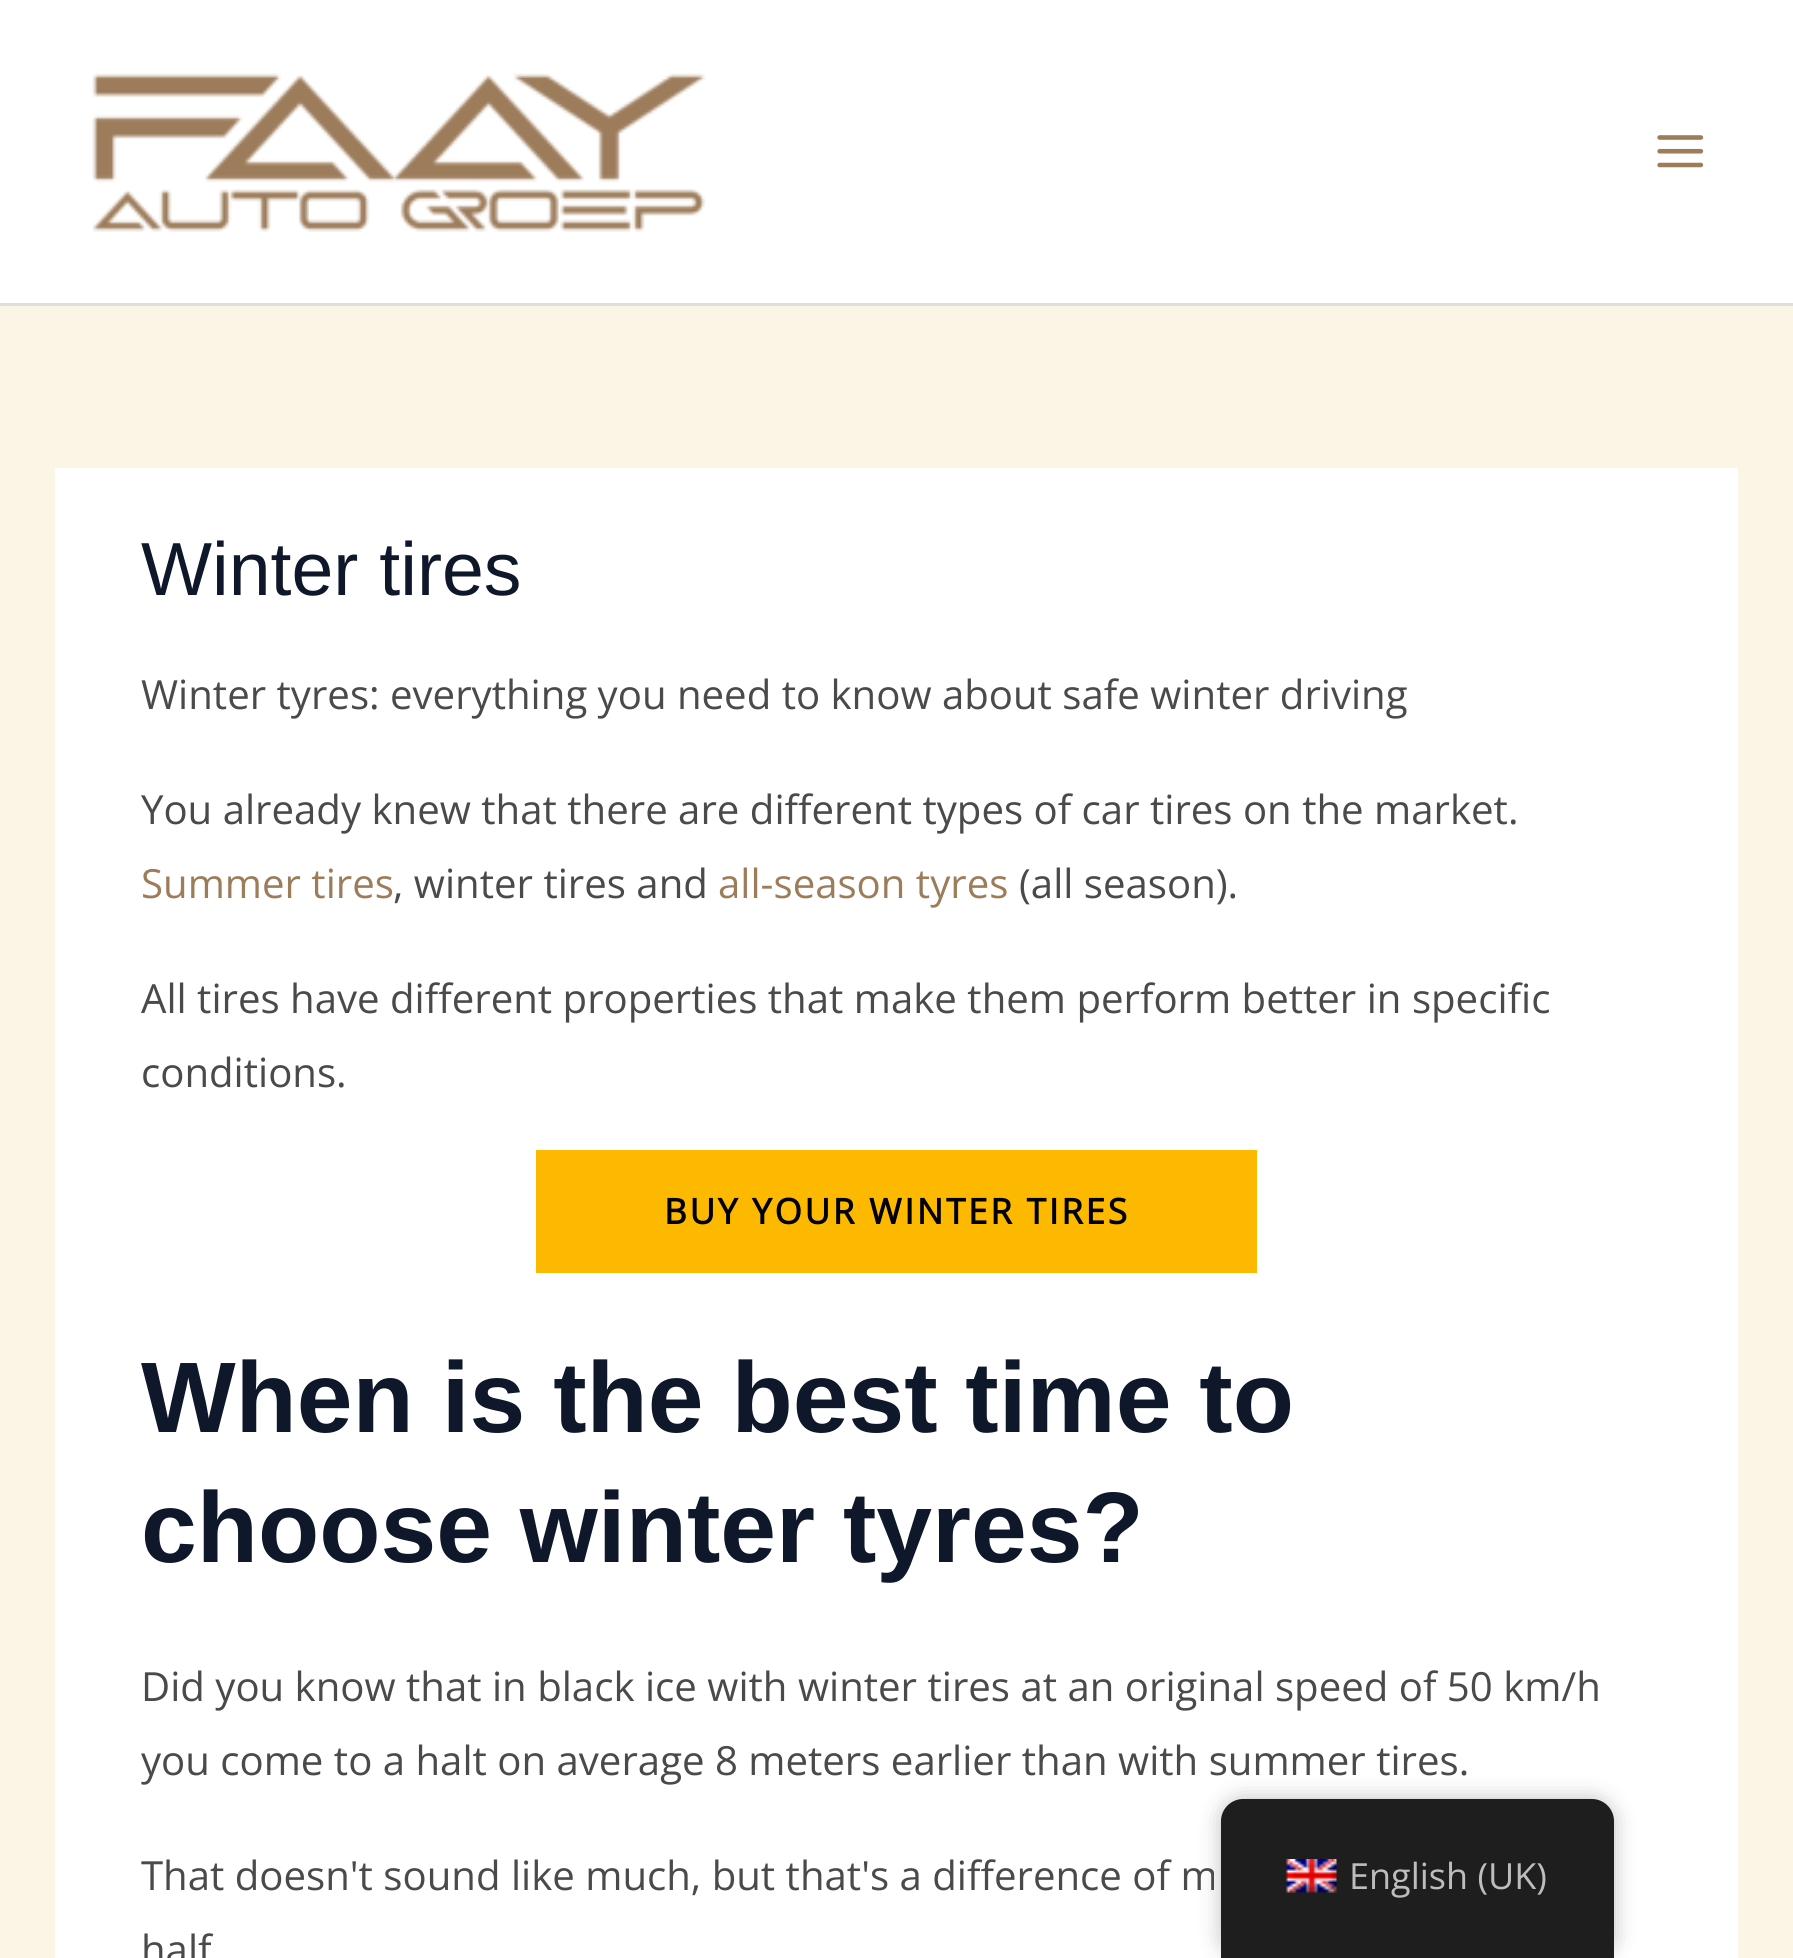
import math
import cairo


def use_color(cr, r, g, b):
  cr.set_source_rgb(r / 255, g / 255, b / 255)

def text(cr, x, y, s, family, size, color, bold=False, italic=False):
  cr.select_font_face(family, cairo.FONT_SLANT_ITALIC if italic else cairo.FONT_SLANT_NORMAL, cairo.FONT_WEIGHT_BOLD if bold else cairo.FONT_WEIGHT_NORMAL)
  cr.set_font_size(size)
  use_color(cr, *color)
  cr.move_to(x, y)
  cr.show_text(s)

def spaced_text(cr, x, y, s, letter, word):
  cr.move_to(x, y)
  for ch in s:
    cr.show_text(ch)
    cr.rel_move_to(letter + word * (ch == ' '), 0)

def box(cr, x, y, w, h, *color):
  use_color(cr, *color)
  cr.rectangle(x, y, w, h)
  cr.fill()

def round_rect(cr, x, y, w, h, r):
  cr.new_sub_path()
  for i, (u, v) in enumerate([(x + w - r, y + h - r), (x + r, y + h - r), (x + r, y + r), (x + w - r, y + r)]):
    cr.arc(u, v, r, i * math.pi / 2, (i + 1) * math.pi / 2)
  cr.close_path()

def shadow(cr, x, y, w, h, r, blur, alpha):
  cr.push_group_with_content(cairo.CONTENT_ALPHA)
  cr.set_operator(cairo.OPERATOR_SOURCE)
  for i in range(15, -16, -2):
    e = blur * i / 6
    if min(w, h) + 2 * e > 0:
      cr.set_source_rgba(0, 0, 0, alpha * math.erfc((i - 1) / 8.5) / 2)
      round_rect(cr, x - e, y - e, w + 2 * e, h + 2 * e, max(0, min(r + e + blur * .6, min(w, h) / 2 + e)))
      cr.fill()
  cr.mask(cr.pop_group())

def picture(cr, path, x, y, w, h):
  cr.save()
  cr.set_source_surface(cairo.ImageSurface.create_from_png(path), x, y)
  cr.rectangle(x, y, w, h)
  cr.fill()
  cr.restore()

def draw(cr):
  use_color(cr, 250, 245, 229)
  cr.paint()
  box(cr, 0, 0, 1793, 303, 255, 255, 255)
  box(cr, 0, 303, 1793, 3, 221, 221, 221)
  picture(cr, "img_01.png", 92, 73, 613, 159)
  picture(cr, "img_02.png", 1657, 135, 47, 33)
  box(cr, 55, 468, 1683, 1490, 255, 255, 255)
  box(cr, 536, 1150, 721, 123, 252, 185, 0)
  use_color(cr, 0, 0, 0)
  shadow(cr, 1221, 1799, 393, 159, 22, 11, 0.25)
  use_color(cr, 30, 30, 30)
  cr.new_path()
  cr.move_to(1243, 1799)
  cr.line_to(1592, 1799)
  cr.curve_to(1604, 1799, 1614, 1809, 1614, 1821)
  cr.line_to(1614, 1958)
  cr.line_to(1221, 1958)
  cr.line_to(1221, 1821)
  cr.curve_to(1221, 1809, 1231, 1799, 1243, 1799)
  cr.close_path()
  cr.fill()
  picture(cr, "img_03.png", 1286, 1859, 51, 34)
  text(cr, 141, 595, "Winter tires", "Liberation Sans", 75.25, (15, 23, 42))
  text(cr, 141, 709, "Winter tyres: everything you need to know about safe winter driving", "Open Sans", 40.15, (74, 74, 74))
  text(cr, 141, 824, "You already knew that there are different types of car tires on the market.", "Open Sans", 40.15, (74, 74, 74))
  text(cr, 141, 898, "Summer tires", "Open Sans", 40.15, (157, 124, 90))
  text(cr, 393, 898, ", winter tires and", "Open Sans", 40.15, (74, 74, 74))
  text(cr, 718, 898, "all-season tyres", "Open Sans", 40.15, (157, 124, 90))
  text(cr, 1019, 898, "(all season).", "Open Sans", 40.15, (74, 74, 74))
  text(cr, 141, 1013, "All tires have different properties that make them perform better in specific", "Open Sans", 40.15, (74, 74, 74))
  text(cr, 141, 1087, "conditions.", "Open Sans", 40.15, (74, 74, 74))
  cr.select_font_face("Open Sans", cairo.FONT_SLANT_NORMAL, cairo.FONT_WEIGHT_BOLD)
  cr.set_font_size(35.1)
  use_color(cr, 0, 0, 0)
  spaced_text(cr, 664, 1224, "BUY YOUR WINTER TIRES", 2.75, 0)
  text(cr, 141, 1432, "When is the best time to", "Liberation Sans", 100.25, (15, 23, 42), bold=True)
  text(cr, 141, 1562, "choose winter tyres?", "Liberation Sans", 100.25, (15, 23, 42), bold=True)
  text(cr, 141, 1701, "Did you know that in black ice with winter tires at an original speed of 50 km/h", "Open Sans", 40.15, (74, 74, 74))
  text(cr, 141, 1775, "you come to a halt on average 8 meters earlier than with summer tires.", "Open Sans", 40.15, (74, 74, 74))
  text(cr, 141, 1890, "That doesn't sound like much, but that's a difference of m", "Open Sans", 40.15, (74, 74, 74))
  text(cr, 141, 1964, "half.", "Open Sans", 40.15, (74, 74, 74))
  text(cr, 1349, 1889, "English (UK)", "Open Sans", 36, (189, 189, 189))


surface = cairo.ImageSurface(cairo.FORMAT_RGB24, 1793, 1958)
cr = cairo.Context(surface)
options = cairo.FontOptions()
options.set_hint_metrics(cairo.HINT_METRICS_OFF)
options.set_hint_style(cairo.HINT_STYLE_NONE)
cr.set_font_options(options)
cr.set_miter_limit(4)
draw(cr)
surface.write_to_png("out.png")
